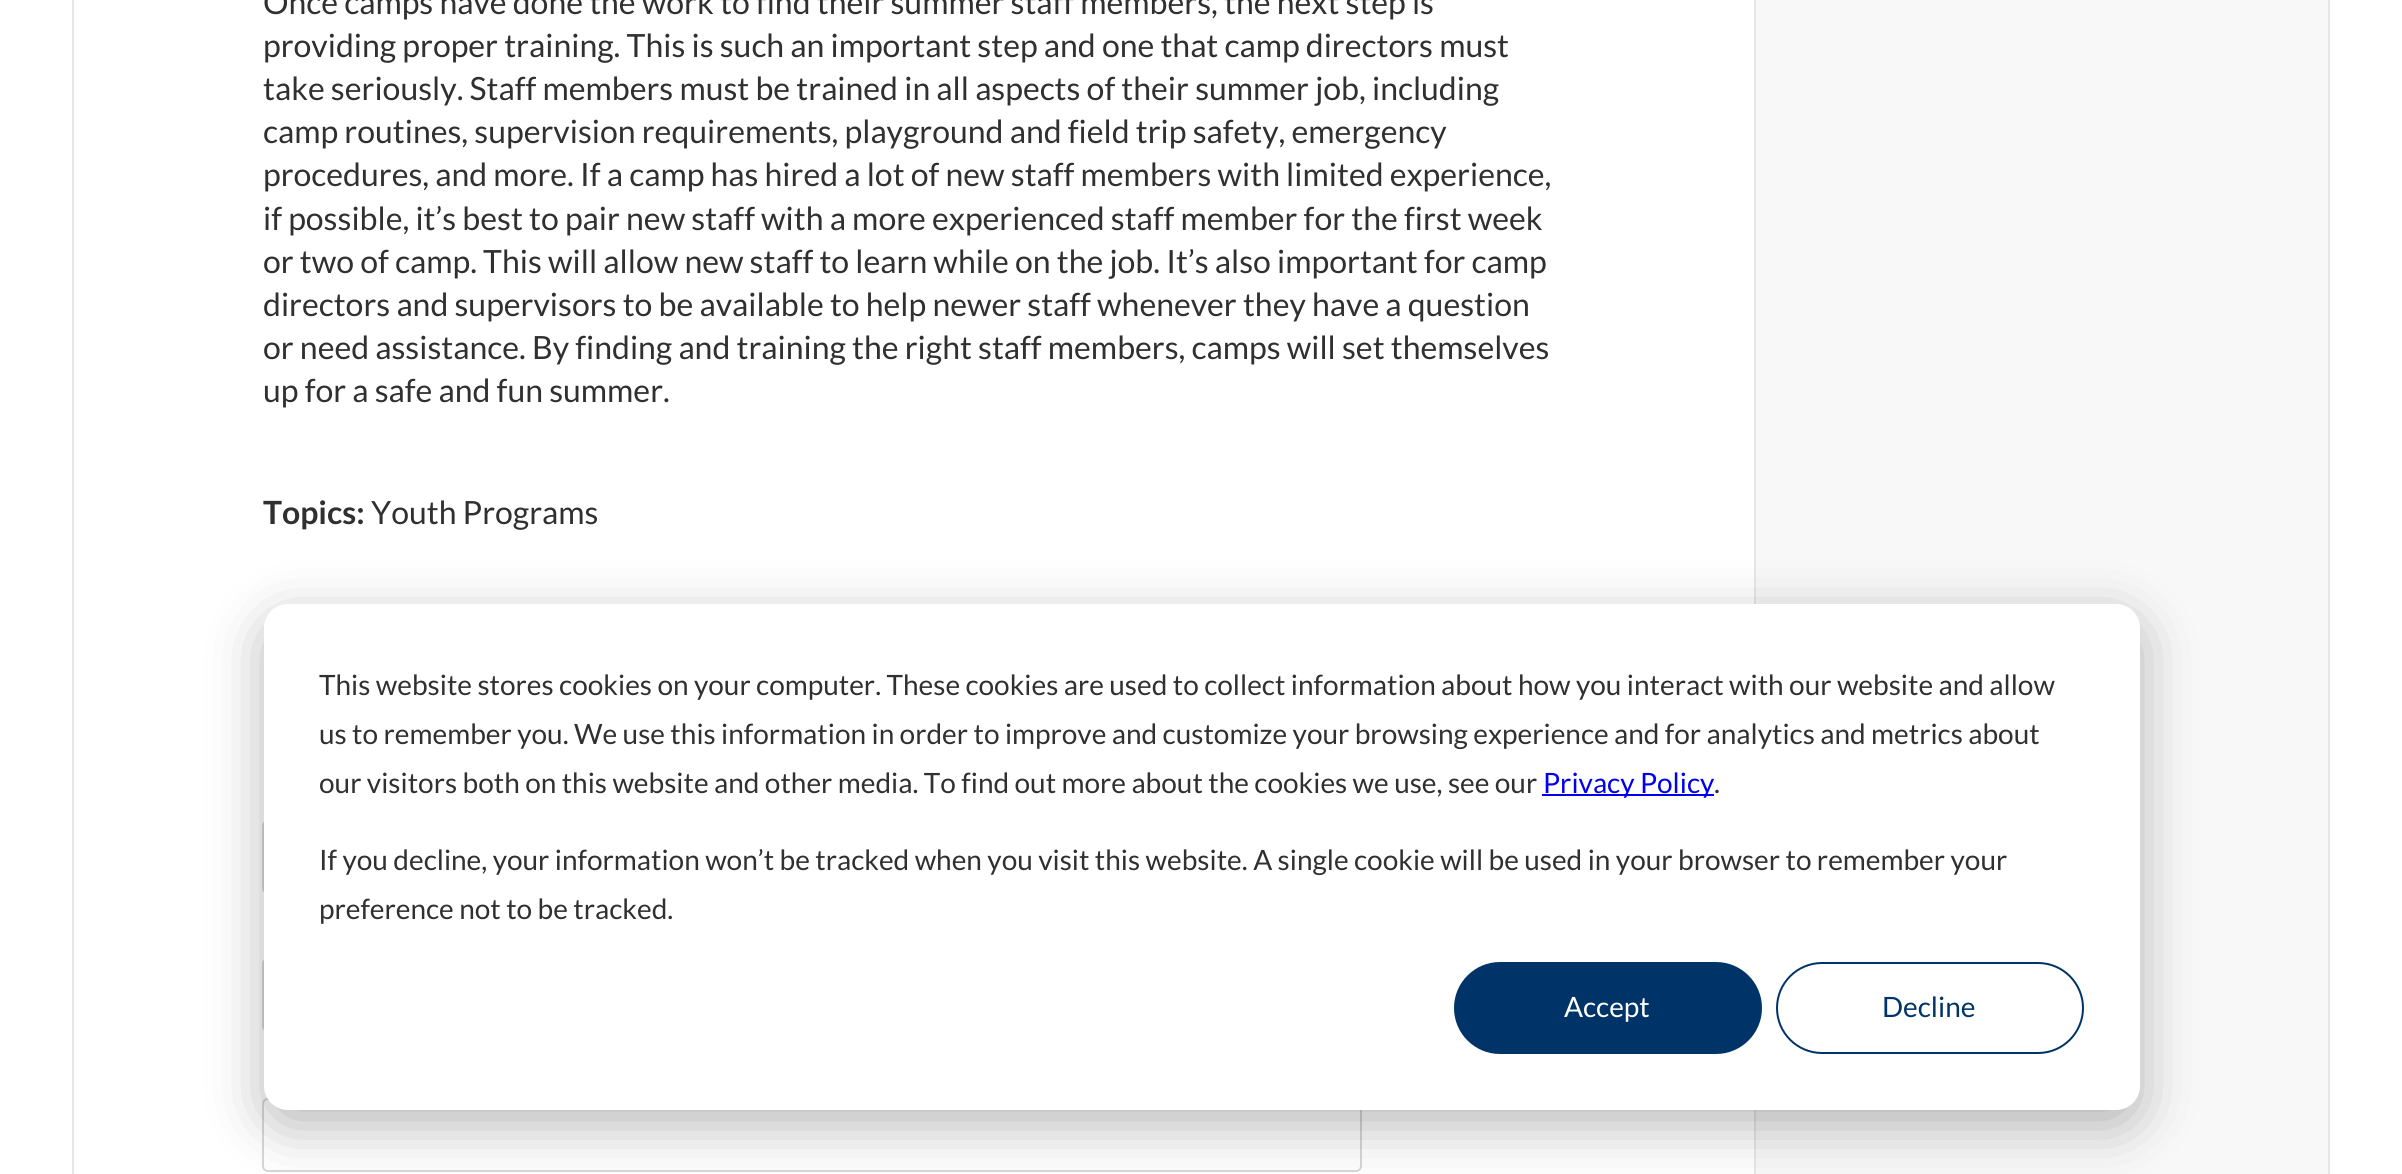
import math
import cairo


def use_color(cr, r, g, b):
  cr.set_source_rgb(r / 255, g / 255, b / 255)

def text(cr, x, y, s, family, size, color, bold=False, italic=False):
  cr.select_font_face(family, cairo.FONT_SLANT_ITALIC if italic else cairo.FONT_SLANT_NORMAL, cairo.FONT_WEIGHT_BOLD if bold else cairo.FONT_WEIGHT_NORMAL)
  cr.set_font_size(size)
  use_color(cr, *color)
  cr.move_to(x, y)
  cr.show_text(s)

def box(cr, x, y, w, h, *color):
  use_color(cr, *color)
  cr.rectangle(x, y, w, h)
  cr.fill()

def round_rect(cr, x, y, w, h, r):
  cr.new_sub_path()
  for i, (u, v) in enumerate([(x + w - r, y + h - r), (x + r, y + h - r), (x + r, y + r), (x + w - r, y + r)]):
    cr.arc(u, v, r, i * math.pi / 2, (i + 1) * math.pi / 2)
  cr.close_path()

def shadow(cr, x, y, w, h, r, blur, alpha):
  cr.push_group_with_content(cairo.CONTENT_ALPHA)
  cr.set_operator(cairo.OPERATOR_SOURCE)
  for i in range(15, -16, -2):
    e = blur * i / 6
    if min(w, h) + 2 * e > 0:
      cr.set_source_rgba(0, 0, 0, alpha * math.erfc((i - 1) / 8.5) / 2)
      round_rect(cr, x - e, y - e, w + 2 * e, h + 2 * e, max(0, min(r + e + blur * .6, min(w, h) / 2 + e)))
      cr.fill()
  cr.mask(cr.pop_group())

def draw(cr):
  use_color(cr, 255, 255, 255)
  cr.paint()
  cr.rectangle(73, -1, 2256, 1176)
  use_color(cr, 230, 230, 230)
  cr.stroke()
  round_rect(cr, 263, 821, 1098, 72, 5)
  use_color(cr, 215, 215, 215)
  cr.stroke()
  round_rect(cr, 263, 959, 1098, 72, 5)
  cr.stroke()
  round_rect(cr, 263, 1099, 1098, 72, 5)
  cr.stroke()
  box(cr, 1756, 0, 572, 1174, 248, 248, 248)
  box(cr, 1754, 0, 2, 1174, 230, 230, 230)
  use_color(cr, 0, 0, 0)
  shadow(cr, 264, 620, 1876, 506, 24, 28, 0.28)
  use_color(cr, 255, 255, 255)
  round_rect(cr, 264, 604, 1876, 506, 24)
  cr.fill()
  box(cr, 1542, 794, 172, 2, 0, 0, 238)
  use_color(cr, 0, 52, 104)
  round_rect(cr, 1455, 963, 306, 90, 45)
  cr.fill_preserve()
  cr.stroke()
  round_rect(cr, 1777, 963, 306, 90, 45)
  cr.stroke()
  text(cr, 263, 14, "Once camps have done the work to find their summer staff members, the next step is", "Lato", 32, (48, 48, 48))
  text(cr, 263, 57, "providing proper training. This is such an important step and one that camp directors must", "Lato", 32, (48, 48, 48))
  text(cr, 263, 100, "take seriously. Staff members must be trained in all aspects of their summer job, including", "Lato", 32, (48, 48, 48))
  text(cr, 263, 143, "camp routines, supervision requirements, playground and field trip safety, emergency", "Lato", 32, (48, 48, 48))
  text(cr, 263, 186, "procedures, and more. If a camp has hired a lot of new staff members with limited experience,", "Lato", 32, (48, 48, 48))
  text(cr, 263, 230, "if possible, it’s best to pair new staff with a more experienced staff member for the first week", "Lato", 32, (48, 48, 48))
  text(cr, 263, 273, "or two of camp. This will allow new staff to learn while on the job. It’s also important for camp", "Lato", 32, (48, 48, 48))
  text(cr, 263, 316, "directors and supervisors to be available to help newer staff whenever they have a question", "Lato", 32, (48, 48, 48))
  text(cr, 263, 359, "or need assistance. By finding and training the right staff members, camps will set themselves", "Lato", 32, (48, 48, 48))
  text(cr, 263, 402, "up for a safe and fun summer.", "Lato", 32, (48, 48, 48))
  text(cr, 263, 524, "Topics:", "Lato", 32, (48, 48, 48), bold=True)
  text(cr, 371, 524, "Youth Programs", "Lato", 32, (48, 48, 48))
  text(cr, 319, 695, "This website stores cookies on your computer. These cookies are used to collect information about how you interact with our website and allow", "Lato", 28, (48, 48, 48))
  text(cr, 319, 744, "us to remember you. We use this information in order to improve and customize your browsing experience and for analytics and metrics about", "Lato", 28, (48, 48, 48))
  text(cr, 319, 793, "our visitors both on this website and other media. To find out more about the cookies we use, see our", "Lato", 28, (48, 48, 48))
  text(cr, 1543, 793, "Privacy Policy", "Lato", 28, (0, 0, 238))
  text(cr, 1714, 793, ".", "Lato", 28, (48, 48, 48))
  text(cr, 319, 870, "If you decline, your information won’t be tracked when you visit this website. A single cookie will be used in your browser to remember your", "Lato", 28, (48, 48, 48))
  text(cr, 319, 919, "preference not to be tracked.", "Lato", 28, (48, 48, 48))
  text(cr, 1564, 1017, "Accept", "Lato", 28, (255, 255, 255))
  text(cr, 1882, 1017, "Decline", "Lato", 28, (0, 52, 104))


surface = cairo.ImageSurface(cairo.FORMAT_RGB24, 2402, 1174)
cr = cairo.Context(surface)
options = cairo.FontOptions()
options.set_hint_metrics(cairo.HINT_METRICS_OFF)
options.set_hint_style(cairo.HINT_STYLE_NONE)
cr.set_font_options(options)
cr.set_miter_limit(4)
draw(cr)
surface.write_to_png("out.png")
